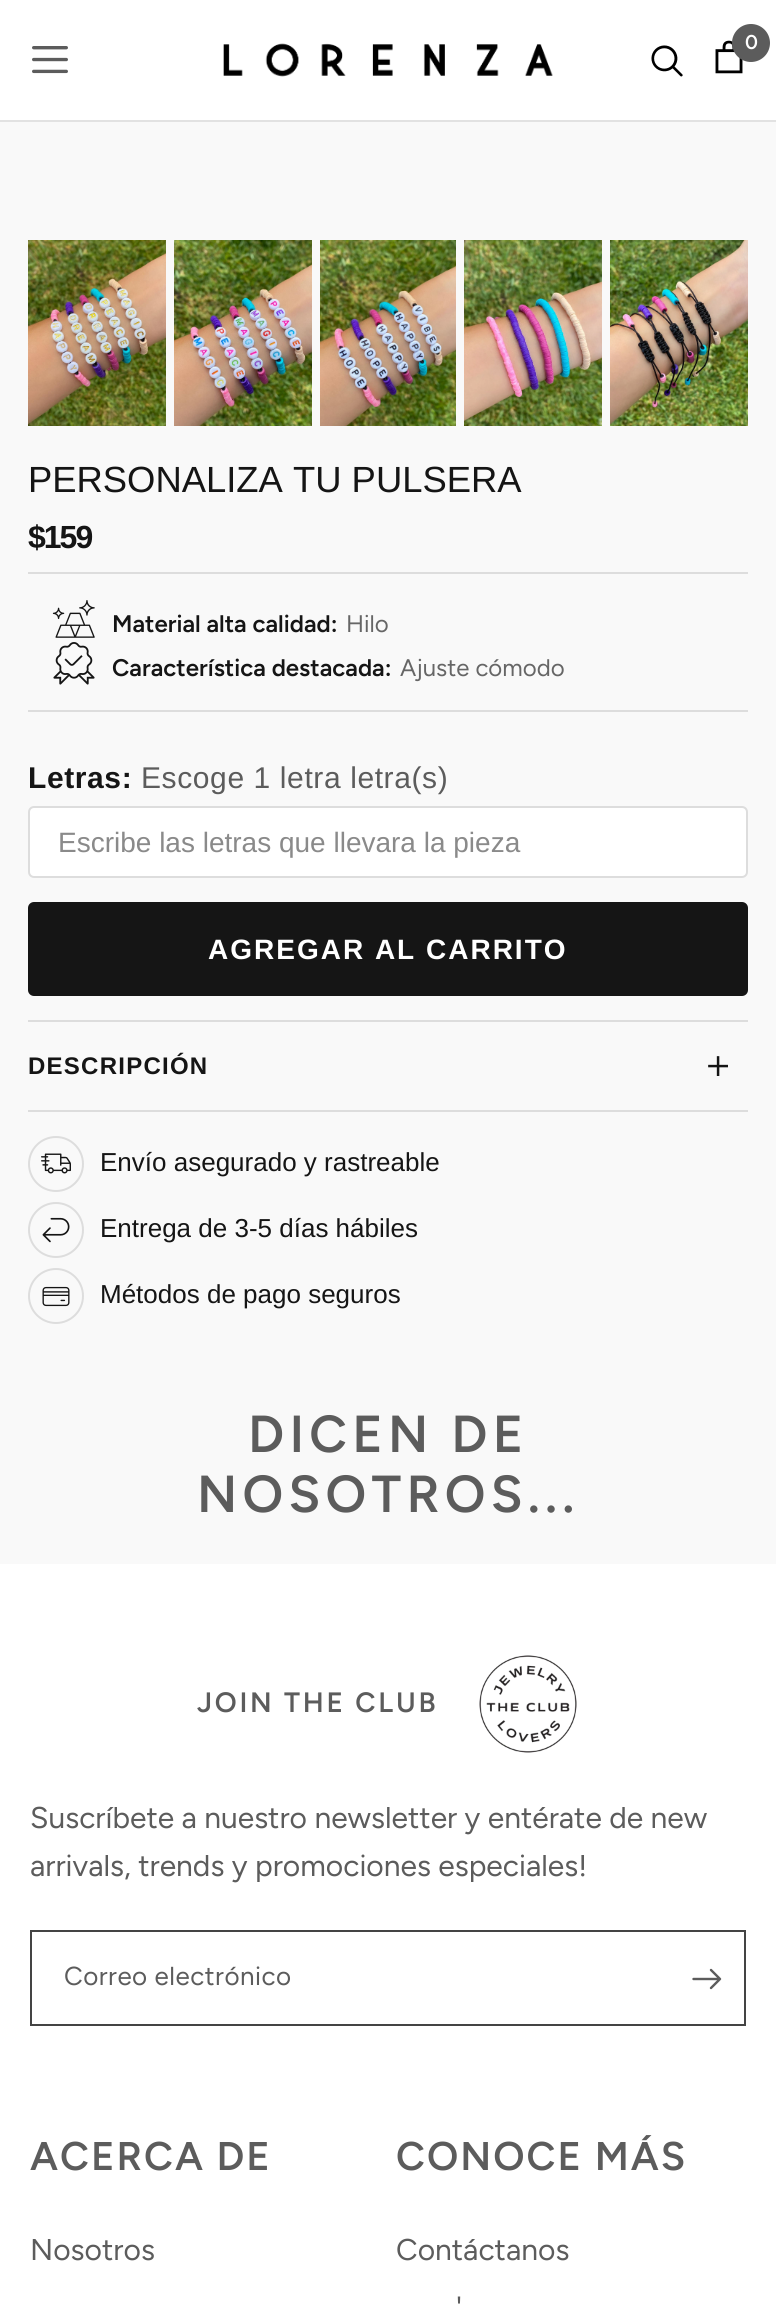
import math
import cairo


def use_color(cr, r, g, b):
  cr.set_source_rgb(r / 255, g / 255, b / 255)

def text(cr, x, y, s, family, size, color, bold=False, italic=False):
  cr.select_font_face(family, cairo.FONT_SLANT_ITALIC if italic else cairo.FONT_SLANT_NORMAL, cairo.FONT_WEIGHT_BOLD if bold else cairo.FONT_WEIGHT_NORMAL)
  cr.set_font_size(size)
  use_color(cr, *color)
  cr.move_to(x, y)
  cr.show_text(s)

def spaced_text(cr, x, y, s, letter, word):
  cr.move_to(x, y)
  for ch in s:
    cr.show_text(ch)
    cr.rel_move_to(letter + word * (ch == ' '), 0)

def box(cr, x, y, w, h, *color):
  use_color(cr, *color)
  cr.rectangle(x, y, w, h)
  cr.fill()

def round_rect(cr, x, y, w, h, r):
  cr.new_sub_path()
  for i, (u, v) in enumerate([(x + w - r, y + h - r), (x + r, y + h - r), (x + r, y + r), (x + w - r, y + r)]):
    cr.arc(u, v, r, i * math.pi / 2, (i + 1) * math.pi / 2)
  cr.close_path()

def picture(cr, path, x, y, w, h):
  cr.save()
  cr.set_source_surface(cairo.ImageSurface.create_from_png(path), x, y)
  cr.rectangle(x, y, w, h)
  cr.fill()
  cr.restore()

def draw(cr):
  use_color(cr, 249, 249, 249)
  cr.paint()
  box(cr, 0, 0, 776, 120, 255, 255, 255)
  box(cr, 0, 120, 776, 2, 226, 226, 226)
  picture(cr, "img_01.png", 32, 46, 36, 28)
  picture(cr, "img_02.png", 223, 43, 330, 34)
  picture(cr, "img_03.png", 715, 40, 28, 34)
  use_color(cr, 92, 92, 92)
  cr.arc(751, 43, 19, 0, 2 * math.pi)
  cr.fill()
  picture(cr, "img_04.png", 651, 45, 32, 32)
  picture(cr, "img_05.png", 28, 240, 138, 186)
  picture(cr, "img_06.png", 174, 240, 138, 186)
  picture(cr, "img_07.png", 320, 240, 136, 186)
  picture(cr, "img_08.png", 464, 240, 138, 186)
  picture(cr, "img_09.png", 610, 240, 138, 186)
  box(cr, 28, 710, 720, 2, 221, 221, 221)
  box(cr, 28, 572, 720, 2, 221, 221, 221)
  picture(cr, "img_10.png", 52, 600, 43, 38)
  picture(cr, "img_11.png", 53, 642, 42, 43)
  use_color(cr, 255, 255, 255)
  round_rect(cr, 29, 807, 718, 70, 5)
  cr.fill_preserve()
  use_color(cr, 221, 221, 221)
  cr.stroke()
  use_color(cr, 21, 21, 21)
  round_rect(cr, 28, 902, 720, 94, 6)
  cr.fill()
  box(cr, 28, 1020, 720, 2, 221, 221, 221)
  box(cr, 28, 1110, 720, 2, 221, 221, 221)
  picture(cr, "img_12.png", 708, 1056, 20, 20)
  picture(cr, "img_13.png", 28, 1136, 56, 56)
  picture(cr, "img_14.png", 28, 1202, 56, 56)
  picture(cr, "img_15.png", 28, 1268, 56, 56)
  box(cr, 0, 1564, 776, 740, 255, 255, 255)
  picture(cr, "img_16.png", 479, 1655, 98, 98)
  cr.rectangle(31, 1931, 714, 94)
  use_color(cr, 68, 68, 68)
  cr.stroke()
  cr.new_path()
  cr.move_to(693.5, 1979)
  cr.line_to(717.5, 1979)
  cr.move_to(711, 1970)
  cr.line_to(720, 1979)
  cr.line_to(711, 1988)
  use_color(cr, 92, 92, 92)
  cr.set_line_width(2.4)
  cr.set_line_cap(cairo.LINE_CAP_ROUND)
  cr.set_line_join(cairo.LINE_JOIN_ROUND)
  cr.stroke()
  text(cr, 745, 49, "0", "Figtree SemiBold", 20, (255, 255, 255))
  text(cr, 28, 492, "PERSONALIZA TU PULSERA", "Liberation Sans", 36.4, (21, 21, 21))
  cr.select_font_face("Liberation Sans", cairo.FONT_SLANT_NORMAL, cairo.FONT_WEIGHT_BOLD)
  cr.set_font_size(32)
  spaced_text(cr, 28, 548, "$159", -2, 0)
  text(cr, 112, 632, "Material alta calidad:", "Figtree SemiBold", 24, (21, 21, 21))
  text(cr, 346, 632, "Hilo", "Figtree", 24, (102, 102, 102))
  text(cr, 112, 676, "Característica destacada:", "Figtree SemiBold", 24, (21, 21, 21))
  text(cr, 400, 676, "Ajuste cómodo", "Figtree", 24, (102, 102, 102))
  cr.select_font_face("Liberation Sans", cairo.FONT_SLANT_NORMAL, cairo.FONT_WEIGHT_BOLD)
  cr.set_font_size(30)
  use_color(cr, 21, 21, 21)
  spaced_text(cr, 28, 788, "Letras:", 0.6, 0)
  cr.select_font_face("Liberation Sans")
  use_color(cr, 92, 92, 92)
  spaced_text(cr, 141, 788, "Escoge 1 letra letra(s)", 0.6, 0)
  text(cr, 58, 852, "Escribe las letras que llevara la pieza", "Liberation Sans", 28, (138, 138, 138))
  cr.select_font_face("Liberation Sans", cairo.FONT_SLANT_NORMAL, cairo.FONT_WEIGHT_BOLD)
  use_color(cr, 255, 255, 255)
  spaced_text(cr, 208, 959, "AGREGAR AL CARRITO", 2, 0)
  cr.set_font_size(24)
  use_color(cr, 21, 21, 21)
  spaced_text(cr, 28, 1074, "DESCRIPCIÓN", 1.25, 0)
  text(cr, 100, 1171, "Envío asegurado y rastreable", "Liberation Sans", 26, (21, 21, 21))
  text(cr, 100, 1237, "Entrega de 3-5 días hábiles", "Liberation Sans", 26, (21, 21, 21))
  text(cr, 100, 1303, "Métodos de pago seguros", "Liberation Sans", 26, (21, 21, 21))
  cr.select_font_face("Figtree SemiBold")
  cr.set_font_size(52)
  use_color(cr, 92, 92, 92)
  spaced_text(cr, 248, 1452, "DICEN DE", 5.25, 0)
  spaced_text(cr, 197, 1512, "NOSOTROS...", 5.25, 0)
  cr.set_font_size(28)
  spaced_text(cr, 197, 1712, "JOIN THE CLUB", 2.75, 0)
  text(cr, 30, 1828, "Suscríbete a nuestro newsletter y entérate de new", "Figtree", 30, (92, 92, 92))
  text(cr, 30, 1876, "arrivals, trends y promociones especiales!", "Figtree", 30, (92, 92, 92))
  cr.set_font_size(26)
  spaced_text(cr, 64, 1985, "Correo electrónico", 0.5, 0)
  cr.select_font_face("Figtree SemiBold")
  cr.set_font_size(40)
  spaced_text(cr, 30, 2170, "ACERCA DE", 2, 0)
  text(cr, 30, 2260, "Nosotros", "Figtree", 30, (92, 92, 92))
  cr.select_font_face("Figtree SemiBold")
  cr.set_font_size(40)
  spaced_text(cr, 396, 2170, "CONOCE MÁS", 2, 0)
  text(cr, 396, 2260, "Contáctanos", "Figtree", 30, (92, 92, 92))
  text(cr, 456, 2318, "'", "Figtree", 30, (92, 92, 92))


surface = cairo.ImageSurface(cairo.FORMAT_RGB24, 776, 2304)
cr = cairo.Context(surface)
options = cairo.FontOptions()
options.set_hint_metrics(cairo.HINT_METRICS_OFF)
options.set_hint_style(cairo.HINT_STYLE_NONE)
cr.set_font_options(options)
cr.set_miter_limit(4)
draw(cr)
surface.write_to_png("out.png")
